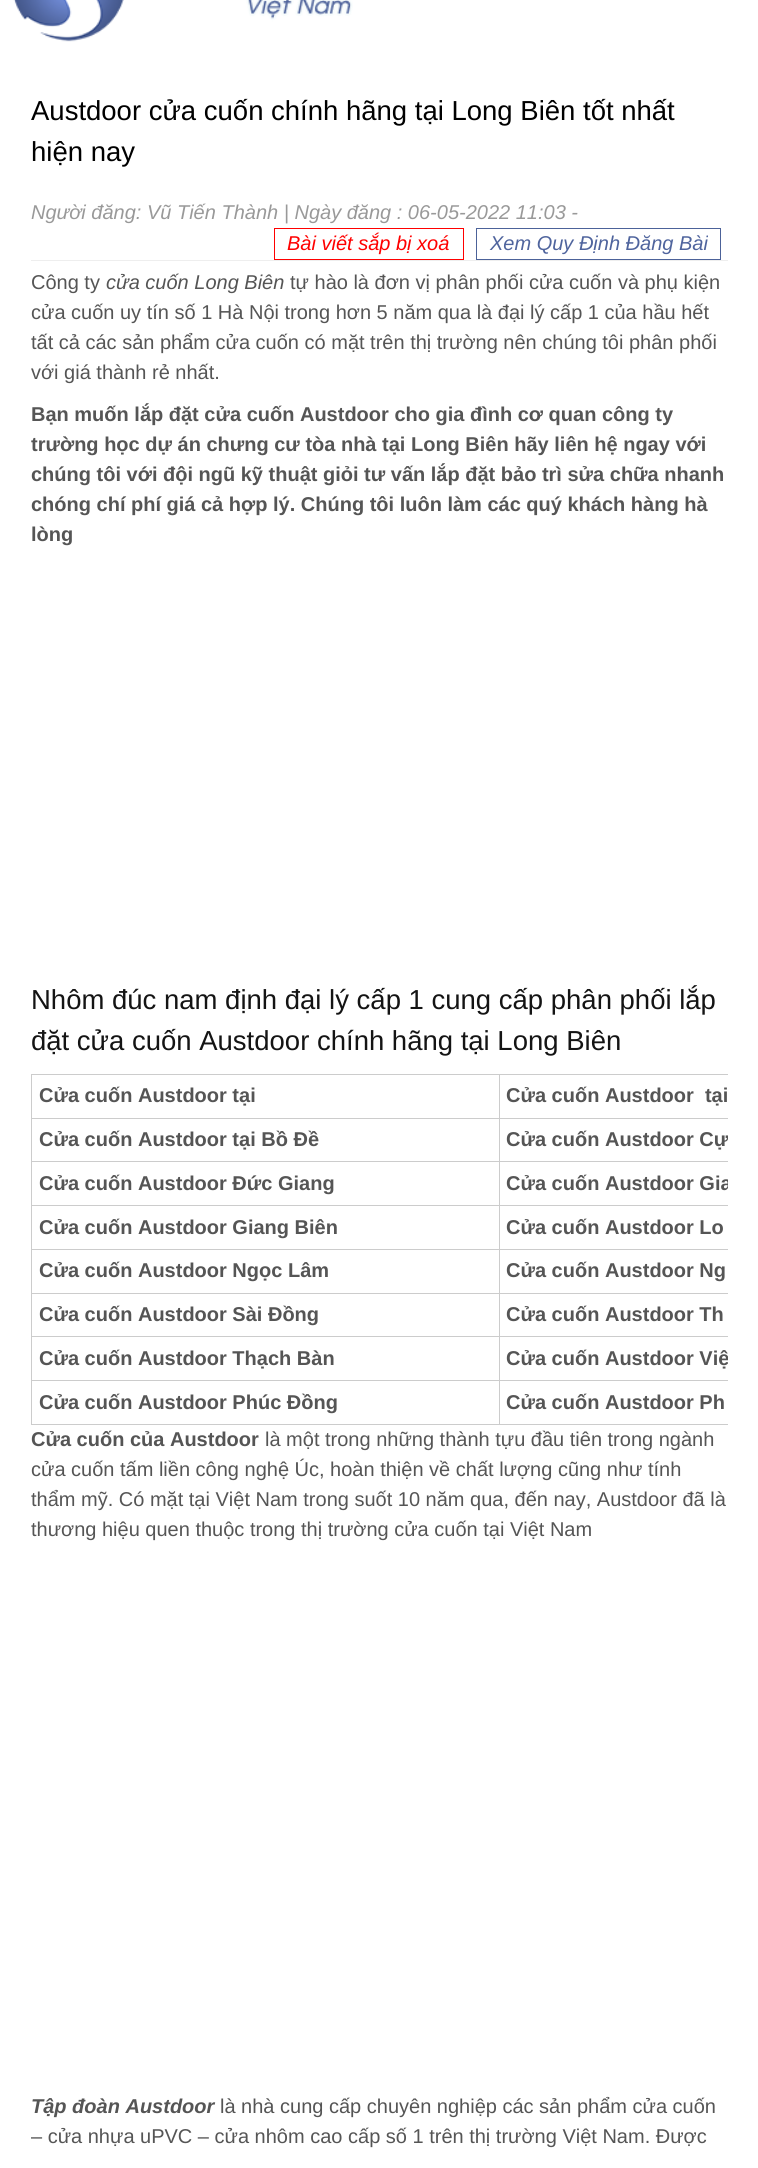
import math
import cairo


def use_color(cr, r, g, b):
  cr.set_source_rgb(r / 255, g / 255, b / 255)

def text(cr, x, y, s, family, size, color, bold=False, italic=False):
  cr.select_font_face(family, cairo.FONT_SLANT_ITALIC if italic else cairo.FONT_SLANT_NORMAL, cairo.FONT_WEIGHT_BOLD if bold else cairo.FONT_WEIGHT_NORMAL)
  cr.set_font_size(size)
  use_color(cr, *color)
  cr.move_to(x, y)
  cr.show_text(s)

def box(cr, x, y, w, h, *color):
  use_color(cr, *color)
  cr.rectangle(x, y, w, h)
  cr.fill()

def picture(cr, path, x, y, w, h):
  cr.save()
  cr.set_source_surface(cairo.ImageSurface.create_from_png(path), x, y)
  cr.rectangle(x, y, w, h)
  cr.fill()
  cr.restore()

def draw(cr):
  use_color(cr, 255, 255, 255)
  cr.paint()
  picture(cr, "img_01.png", 13, 0, 340, 42)
  box(cr, 31, 260, 697, 1, 238, 238, 238)
  cr.rectangle(274.5, 228.5, 189, 31)
  use_color(cr, 255, 0, 0)
  cr.set_line_width(1)
  cr.stroke()
  cr.rectangle(476.5, 228.5, 244, 31)
  use_color(cr, 76, 98, 153)
  cr.stroke()
  box(cr, 499, 1074, 229, 1, 204, 204, 204)
  box(cr, 499, 1118, 229, 1, 204, 204, 204)
  box(cr, 499, 1161, 229, 1, 204, 204, 204)
  box(cr, 499, 1205, 229, 1, 204, 204, 204)
  box(cr, 499, 1249, 229, 1, 204, 204, 204)
  box(cr, 499, 1293, 229, 1, 204, 204, 204)
  box(cr, 499, 1336, 229, 1, 204, 204, 204)
  box(cr, 499, 1380, 229, 1, 204, 204, 204)
  box(cr, 499, 1424, 229, 1, 204, 204, 204)
  box(cr, 499, 1380, 1, 45, 204, 204, 204)
  box(cr, 31, 1380, 469, 1, 204, 204, 204)
  box(cr, 499, 1336, 1, 45, 204, 204, 204)
  box(cr, 31, 1336, 469, 1, 204, 204, 204)
  box(cr, 499, 1293, 1, 45, 204, 204, 204)
  box(cr, 31, 1293, 469, 1, 204, 204, 204)
  box(cr, 499, 1249, 1, 45, 204, 204, 204)
  box(cr, 31, 1249, 469, 1, 204, 204, 204)
  box(cr, 499, 1205, 1, 45, 204, 204, 204)
  box(cr, 31, 1205, 469, 1, 204, 204, 204)
  box(cr, 499, 1161, 1, 45, 204, 204, 204)
  box(cr, 31, 1161, 469, 1, 204, 204, 204)
  box(cr, 499, 1118, 1, 45, 204, 204, 204)
  box(cr, 31, 1118, 469, 1, 204, 204, 204)
  box(cr, 499, 1074, 1, 45, 204, 204, 204)
  box(cr, 31, 1074, 469, 1, 204, 204, 204)
  box(cr, 31, 1424, 469, 1, 204, 204, 204)
  box(cr, 31, 1380, 1, 45, 204, 204, 204)
  box(cr, 31, 1336, 1, 45, 204, 204, 204)
  box(cr, 31, 1293, 1, 45, 204, 204, 204)
  box(cr, 31, 1249, 1, 45, 204, 204, 204)
  box(cr, 31, 1205, 1, 45, 204, 204, 204)
  box(cr, 31, 1161, 1, 45, 204, 204, 204)
  box(cr, 31, 1118, 1, 45, 204, 204, 204)
  box(cr, 31, 1074, 1, 45, 204, 204, 204)
  text(cr, 31, 120, "Austdoor cửa cuốn chính hãng tại Long Biên tốt nhất", "Liberation Sans", 27.5, (0, 0, 0))
  text(cr, 31, 161, "hiện nay", "Liberation Sans", 27.5, (0, 0, 0))
  text(cr, 31, 219, "Người đăng: Vũ Tiến Thành | Ngày đăng : 06-05-2022 11:03 -", "Liberation Sans", 20, (153, 153, 153), italic=True)
  text(cr, 287, 250, "Bài viết sắp bị xoá", "Liberation Sans", 20, (255, 0, 0), italic=True)
  text(cr, 490, 250, "Xem Quy Định Đăng Bài", "Liberation Sans", 20, (79, 100, 157), italic=True)
  text(cr, 31, 289, "Công ty", "Liberation Sans", 20, (85, 85, 85))
  text(cr, 106, 289, "cửa cuốn Long Biên", "Liberation Sans", 20, (85, 85, 85), italic=True)
  text(cr, 290, 289, "tự hào là đơn vị phân phối cửa cuốn và phụ kiện", "Liberation Sans", 20, (85, 85, 85))
  text(cr, 31, 319, "cửa cuốn uy tín số 1 Hà Nội trong hơn 5 năm qua là đại lý cấp 1 của hầu hết", "Liberation Sans", 20, (85, 85, 85))
  text(cr, 31, 349, "tất cả các sản phẩm cửa cuốn có mặt trên thị trường nên chúng tôi phân phối", "Liberation Sans", 20, (85, 85, 85))
  text(cr, 31, 379, "với giá thành rẻ nhất.", "Liberation Sans", 20, (85, 85, 85))
  text(cr, 31, 421, "Bạn muốn lắp đặt cửa cuốn Austdoor cho gia đình cơ quan công ty", "Liberation Sans", 20, (85, 85, 85), bold=True)
  text(cr, 31, 451, "trường học dự án chưng cư tòa nhà tại Long Biên hãy liên hệ ngay với", "Liberation Sans", 20, (85, 85, 85), bold=True)
  text(cr, 31, 481, "chúng tôi với đội ngũ kỹ thuật giỏi tư vấn lắp đặt bảo trì sửa chữa nhanh", "Liberation Sans", 20, (85, 85, 85), bold=True)
  text(cr, 31, 511, "chóng chí phí giá cả hợp lý. Chúng tôi luôn làm các quý khách hàng hà", "Liberation Sans", 20, (85, 85, 85), bold=True)
  text(cr, 31, 541, "lòng", "Liberation Sans", 20, (85, 85, 85), bold=True)
  text(cr, 31, 1009, "Nhôm đúc nam định đại lý cấp 1 cung cấp phân phối lắp", "Liberation Sans", 27.5, (20, 20, 20))
  text(cr, 31, 1050, "đặt cửa cuốn Austdoor chính hãng tại Long Biên", "Liberation Sans", 27.5, (20, 20, 20))
  text(cr, 39, 1102, "Cửa cuốn Austdoor tại", "Liberation Sans", 20, (85, 85, 85), bold=True)
  text(cr, 506, 1102, "Cửa cuốn Austdoor  tại", "Liberation Sans", 20, (85, 85, 85), bold=True)
  text(cr, 39, 1146, "Cửa cuốn Austdoor tại Bồ Đề", "Liberation Sans", 20, (85, 85, 85), bold=True)
  cr.save()
  cr.rectangle(31, 65, 697, 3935)
  cr.clip()
  text(cr, 506, 1146, "Cửa cuốn Austdoor Cự", "Liberation Sans", 20, (85, 85, 85), bold=True)
  cr.restore()
  text(cr, 39, 1190, "Cửa cuốn Austdoor Đức Giang", "Liberation Sans", 20, (85, 85, 85), bold=True)
  cr.save()
  cr.rectangle(31, 65, 697, 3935)
  cr.clip()
  text(cr, 506, 1190, "Cửa cuốn Austdoor Gia", "Liberation Sans", 20, (85, 85, 85), bold=True)
  cr.restore()
  text(cr, 39, 1234, "Cửa cuốn Austdoor Giang Biên", "Liberation Sans", 20, (85, 85, 85), bold=True)
  text(cr, 506, 1234, "Cửa cuốn Austdoor Lo", "Liberation Sans", 20, (85, 85, 85), bold=True)
  text(cr, 39, 1277, "Cửa cuốn Austdoor Ngọc Lâm", "Liberation Sans", 20, (85, 85, 85), bold=True)
  text(cr, 506, 1277, "Cửa cuốn Austdoor Ng", "Liberation Sans", 20, (85, 85, 85), bold=True)
  text(cr, 39, 1321, "Cửa cuốn Austdoor Sài Đồng", "Liberation Sans", 20, (85, 85, 85), bold=True)
  text(cr, 506, 1321, "Cửa cuốn Austdoor Th", "Liberation Sans", 20, (85, 85, 85), bold=True)
  text(cr, 39, 1365, "Cửa cuốn Austdoor Thạch Bàn", "Liberation Sans", 20, (85, 85, 85), bold=True)
  cr.save()
  cr.rectangle(31, 65, 697, 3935)
  cr.clip()
  text(cr, 506, 1365, "Cửa cuốn Austdoor Việ", "Liberation Sans", 20, (85, 85, 85), bold=True)
  cr.restore()
  text(cr, 39, 1409, "Cửa cuốn Austdoor Phúc Đồng", "Liberation Sans", 20, (85, 85, 85), bold=True)
  text(cr, 506, 1409, "Cửa cuốn Austdoor Ph", "Liberation Sans", 20, (85, 85, 85), bold=True)
  text(cr, 31, 1446, "Cửa cuốn của Austdoor", "Liberation Sans", 20, (85, 85, 85), bold=True)
  text(cr, 265, 1446, "là một trong những thành tựu đầu tiên trong ngành", "Liberation Sans", 20, (85, 85, 85))
  text(cr, 31, 1476, "cửa cuốn tấm liền công nghệ Úc, hoàn thiện về chất lượng cũng như tính", "Liberation Sans", 20, (85, 85, 85))
  text(cr, 31, 1506, "thẩm mỹ. Có mặt tại Việt Nam trong suốt 10 năm qua, đến nay, Austdoor đã là", "Liberation Sans", 20, (85, 85, 85))
  text(cr, 31, 1536, "thương hiệu quen thuộc trong thị trường cửa cuốn tại Việt Nam", "Liberation Sans", 20, (85, 85, 85))
  text(cr, 31, 2113, "Tập đoàn Austdoor", "Liberation Sans", 20, (85, 85, 85), bold=True, italic=True)
  text(cr, 220, 2113, "là nhà cung cấp chuyên nghiệp các sản phẩm cửa cuốn", "Liberation Sans", 20, (85, 85, 85))
  text(cr, 31, 2143, "– cửa nhựa uPVC – cửa nhôm cao cấp số 1 trên thị trường Việt Nam. Được", "Liberation Sans", 20, (85, 85, 85))


surface = cairo.ImageSurface(cairo.FORMAT_RGB24, 758, 2168)
cr = cairo.Context(surface)
options = cairo.FontOptions()
options.set_hint_metrics(cairo.HINT_METRICS_OFF)
options.set_hint_style(cairo.HINT_STYLE_NONE)
cr.set_font_options(options)
cr.set_miter_limit(4)
draw(cr)
surface.write_to_png("out.png")
